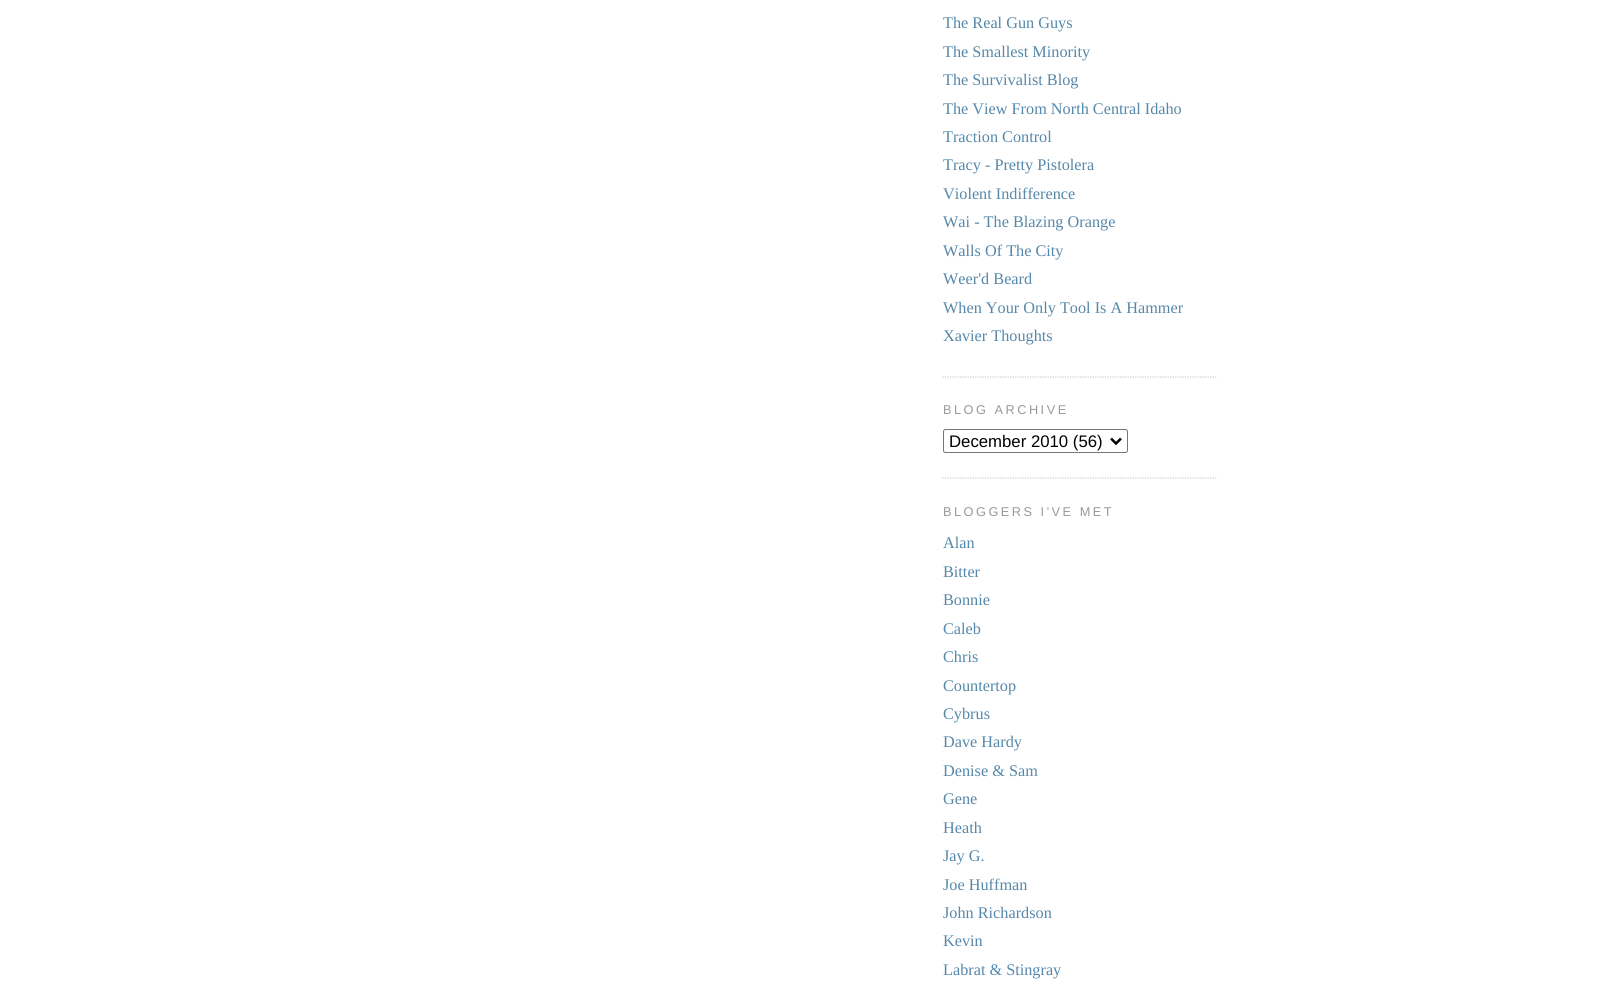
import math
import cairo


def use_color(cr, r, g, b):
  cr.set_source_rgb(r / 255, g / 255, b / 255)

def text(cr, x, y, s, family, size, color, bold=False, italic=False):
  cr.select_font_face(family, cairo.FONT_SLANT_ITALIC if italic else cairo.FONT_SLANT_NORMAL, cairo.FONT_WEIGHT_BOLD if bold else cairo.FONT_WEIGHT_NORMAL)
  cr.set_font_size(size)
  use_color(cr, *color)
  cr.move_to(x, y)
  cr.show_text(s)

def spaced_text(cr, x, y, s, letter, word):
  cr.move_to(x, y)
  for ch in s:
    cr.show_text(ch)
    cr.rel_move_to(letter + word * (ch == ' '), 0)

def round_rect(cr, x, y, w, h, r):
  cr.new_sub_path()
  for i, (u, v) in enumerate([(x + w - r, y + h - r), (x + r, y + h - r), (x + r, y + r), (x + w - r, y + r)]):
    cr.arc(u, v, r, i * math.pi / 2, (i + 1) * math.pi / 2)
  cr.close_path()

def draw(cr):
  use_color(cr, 255, 255, 255)
  cr.paint()
  cr.new_path()
  cr.move_to(942.5, 377)
  cr.line_to(1217.5, 377)
  use_color(cr, 204, 204, 204)
  cr.set_line_width(1.2)
  cr.set_dash([1.25, 1.25])
  cr.stroke()
  cr.new_path()
  cr.move_to(942.5, 478)
  cr.line_to(1217.5, 478)
  cr.stroke()
  round_rect(cr, 943.5, 429.5, 184, 23, 2)
  use_color(cr, 118, 118, 118)
  cr.set_line_width(1)
  cr.set_dash([])
  cr.stroke()
  cr.new_path()
  cr.move_to(1111, 438.5)
  cr.line_to(1116, 443.5)
  cr.line_to(1121, 438.5)
  use_color(cr, 0, 0, 0)
  cr.set_line_width(2.5)
  cr.stroke()
  cr.save()
  cr.rectangle(943, 0, 275, 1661)
  cr.clip()
  text(cr, 943, 28, "The Real Gun Guys", "Liberation Serif", 16.25, (85, 136, 170))
  text(cr, 943, 57, "The Smallest Minority", "Liberation Serif", 16.25, (85, 136, 170))
  text(cr, 943, 85, "The Survivalist Blog", "Liberation Serif", 16.25, (85, 136, 170))
  text(cr, 943, 114, "The View From North Central Idaho", "Liberation Serif", 16.25, (85, 136, 170))
  text(cr, 943, 142, "Traction Control", "Liberation Serif", 16.25, (85, 136, 170))
  text(cr, 943, 170, "Tracy - Pretty Pistolera", "Liberation Serif", 16.25, (85, 136, 170))
  cr.restore()
  text(cr, 943, 199, "Violent Indifference", "Liberation Serif", 16.25, (85, 136, 170))
  text(cr, 943, 227, "Wai - The Blazing Orange", "Liberation Serif", 16.25, (85, 136, 170))
  text(cr, 943, 256, "Walls Of The City", "Liberation Serif", 16.25, (85, 136, 170))
  text(cr, 943, 284, "Weer'd Beard", "Liberation Serif", 16.25, (85, 136, 170))
  text(cr, 943, 313, "When Your Only Tool Is A Hammer", "Liberation Serif", 16.25, (85, 136, 170))
  text(cr, 943, 341, "Xavier Thoughts", "Liberation Serif", 16.25, (85, 136, 170))
  cr.select_font_face("Liberation Sans")
  cr.set_font_size(12.75)
  use_color(cr, 153, 153, 153)
  spaced_text(cr, 943, 414, "BLOG ARCHIVE", 2.5, 0)
  text(cr, 949, 447, "December 2010 (56)", "Liberation Sans", 16.75, (0, 0, 0))
  cr.set_font_size(12.75)
  use_color(cr, 153, 153, 153)
  spaced_text(cr, 943, 516, "BLOGGERS I'VE MET", 2.5, 0)
  text(cr, 943, 548, "Alan", "Liberation Serif", 16.25, (85, 136, 170))
  text(cr, 943, 577, "Bitter", "Liberation Serif", 16.25, (85, 136, 170))
  text(cr, 943, 605, "Bonnie", "Liberation Serif", 16.25, (85, 136, 170))
  text(cr, 943, 634, "Caleb", "Liberation Serif", 16.25, (85, 136, 170))
  text(cr, 943, 662, "Chris", "Liberation Serif", 16.25, (85, 136, 170))
  text(cr, 943, 691, "Countertop", "Liberation Serif", 16.25, (85, 136, 170))
  text(cr, 943, 719, "Cybrus", "Liberation Serif", 16.25, (85, 136, 170))
  text(cr, 943, 747, "Dave Hardy", "Liberation Serif", 16.25, (85, 136, 170))
  text(cr, 943, 776, "Denise & Sam", "Liberation Serif", 16.25, (85, 136, 170))
  text(cr, 943, 804, "Gene", "Liberation Serif", 16.25, (85, 136, 170))
  text(cr, 943, 833, "Heath", "Liberation Serif", 16.25, (85, 136, 170))
  text(cr, 943, 861, "Jay G.", "Liberation Serif", 16.25, (85, 136, 170))
  text(cr, 943, 890, "Joe Huffman", "Liberation Serif", 16.25, (85, 136, 170))
  text(cr, 943, 918, "John Richardson", "Liberation Serif", 16.25, (85, 136, 170))
  text(cr, 943, 946, "Kevin", "Liberation Serif", 16.25, (85, 136, 170))
  text(cr, 943, 975, "Labrat & Stingray", "Liberation Serif", 16.25, (85, 136, 170))


surface = cairo.ImageSurface(cairo.FORMAT_RGB24, 1610, 996)
cr = cairo.Context(surface)
options = cairo.FontOptions()
options.set_hint_metrics(cairo.HINT_METRICS_OFF)
options.set_hint_style(cairo.HINT_STYLE_NONE)
cr.set_font_options(options)
cr.set_miter_limit(4)
draw(cr)
surface.write_to_png("out.png")
